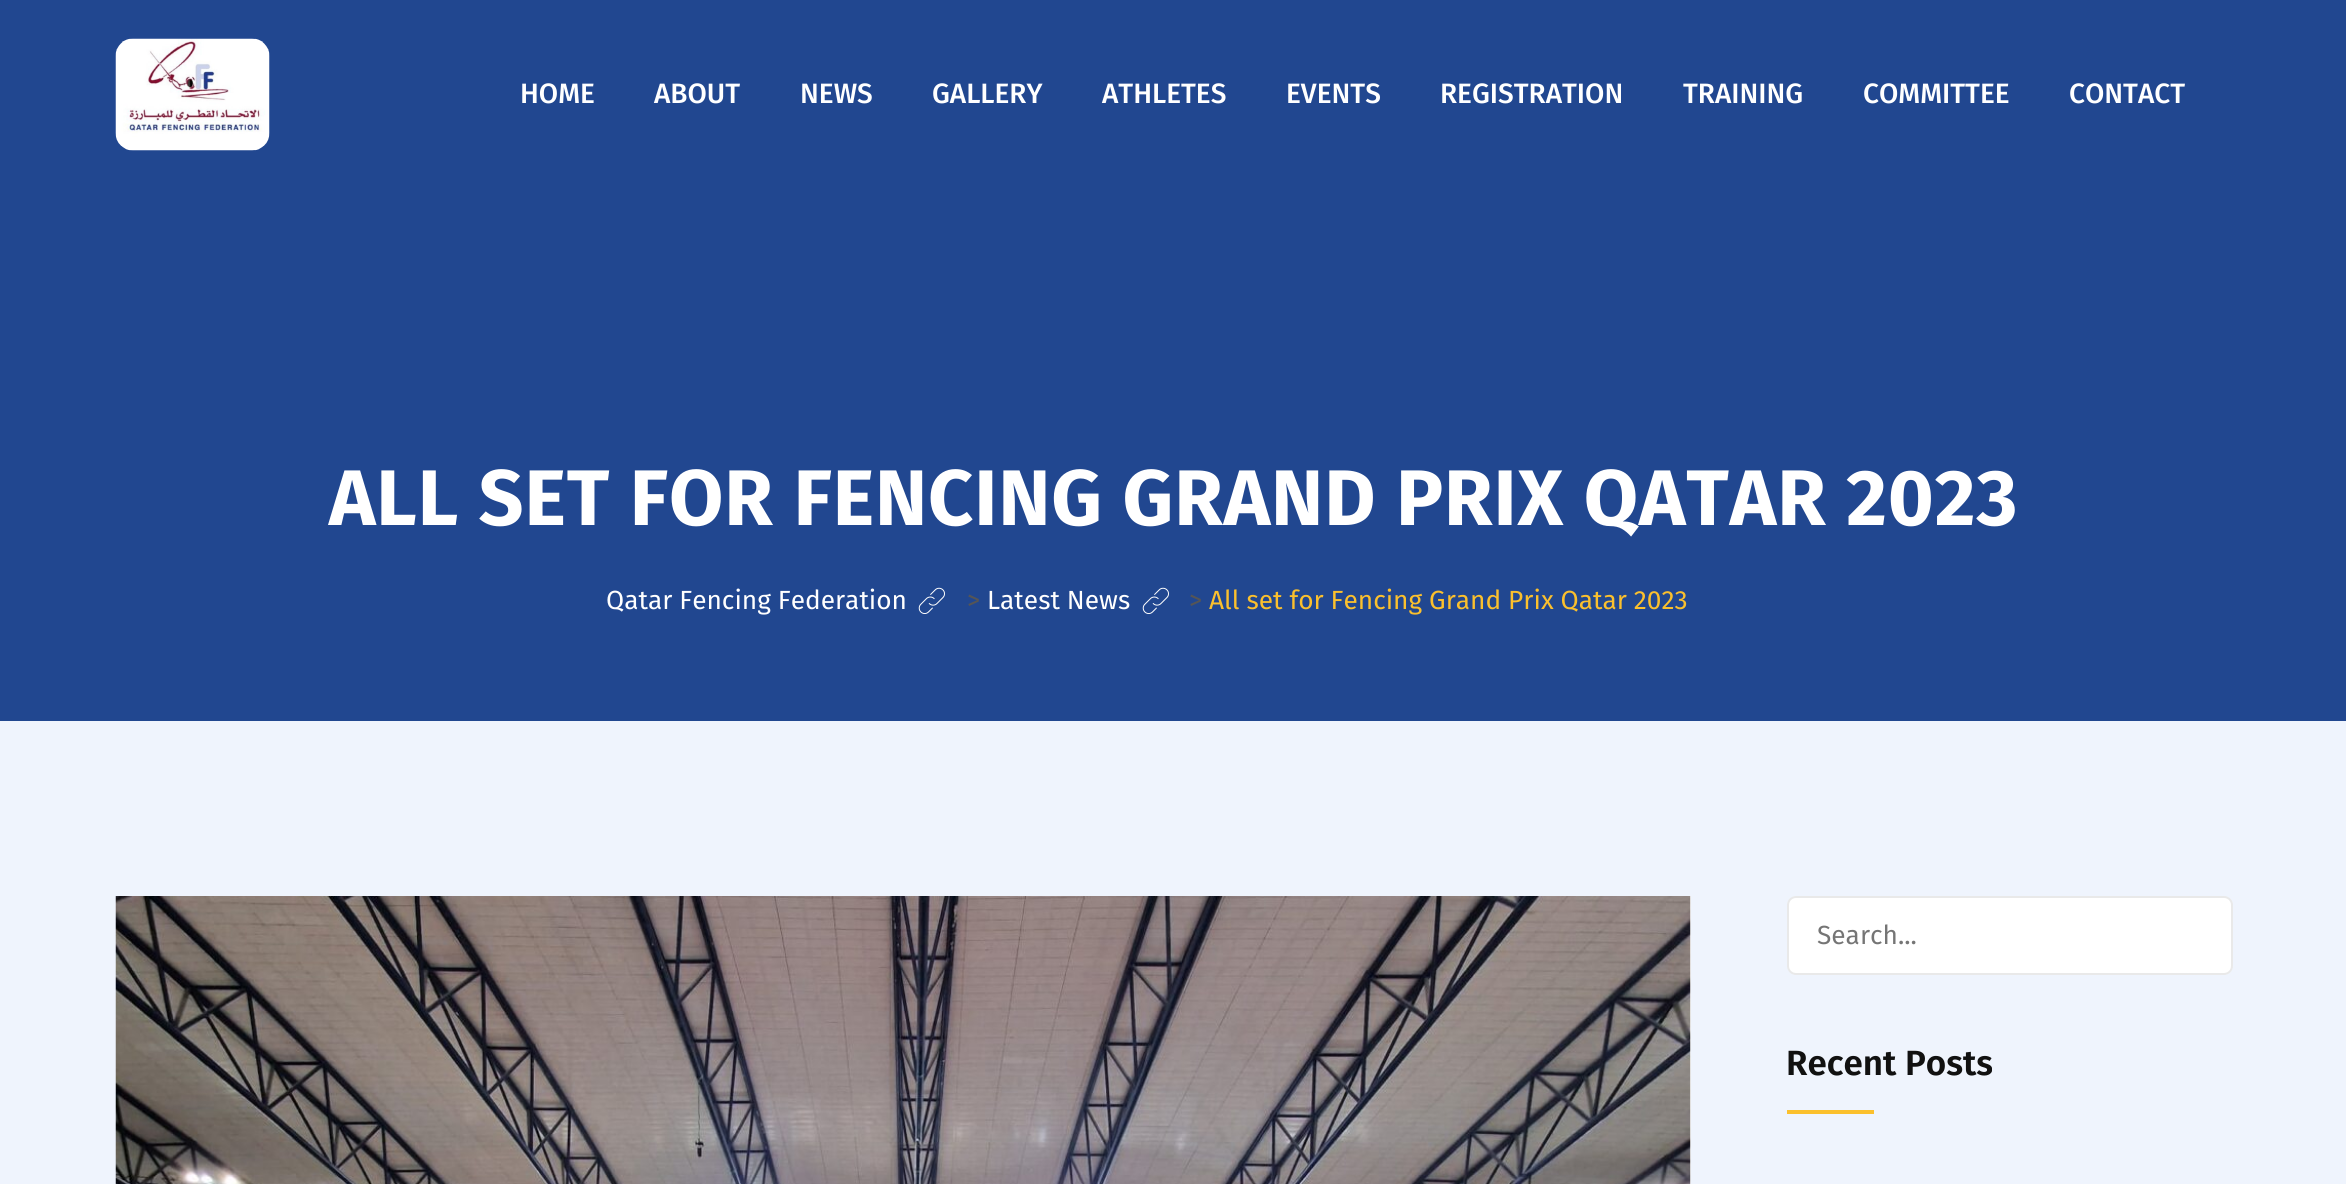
import math
import cairo


def use_color(cr, r, g, b):
  cr.set_source_rgb(r / 255, g / 255, b / 255)

def text(cr, x, y, s, family, size, color, bold=False, italic=False):
  cr.select_font_face(family, cairo.FONT_SLANT_ITALIC if italic else cairo.FONT_SLANT_NORMAL, cairo.FONT_WEIGHT_BOLD if bold else cairo.FONT_WEIGHT_NORMAL)
  cr.set_font_size(size)
  use_color(cr, *color)
  cr.move_to(x, y)
  cr.show_text(s)

def spaced_text(cr, x, y, s, letter, word):
  cr.move_to(x, y)
  for ch in s:
    cr.show_text(ch)
    cr.rel_move_to(letter + word * (ch == ' '), 0)

def box(cr, x, y, w, h, *color):
  use_color(cr, *color)
  cr.rectangle(x, y, w, h)
  cr.fill()

def round_rect(cr, x, y, w, h, r):
  cr.new_sub_path()
  for i, (u, v) in enumerate([(x + w - r, y + h - r), (x + r, y + h - r), (x + r, y + r), (x + w - r, y + r)]):
    cr.arc(u, v, r, i * math.pi / 2, (i + 1) * math.pi / 2)
  cr.close_path()

def picture(cr, path, x, y, w, h):
  cr.save()
  cr.set_source_surface(cairo.ImageSurface.create_from_png(path), x, y)
  cr.rectangle(x, y, w, h)
  cr.fill()
  cr.restore()

def draw(cr):
  use_color(cr, 239, 244, 253)
  cr.paint()
  box(cr, 0, 0, 2346, 721, 33, 71, 144)
  picture(cr, "img_01.png", 115, 38, 155, 113)
  picture(cr, "img_02.png", 918, 587, 27, 27)
  picture(cr, "img_02.png", 1142, 587, 27, 27)
  box(cr, 1690, 896, 1, 288, 255, 255, 255)
  picture(cr, "img_03.png", 115, 896, 1576, 288)
  round_rect(cr, 1787, 896, 446, 79, 9)
  cr.fill()
  round_rect(cr, 1788, 897, 444, 77, 8)
  cr.set_source_rgba(0.667, 0.667, 0.667, 0.25)
  cr.stroke()
  box(cr, 1787, 1110, 87, 4, 251, 192, 45)
  text(cr, 520, 103, "HOME", "Fira Sans Medium", 28, (255, 255, 255))
  text(cr, 654, 103, "ABOUT", "Fira Sans Medium", 28, (255, 255, 255))
  text(cr, 800, 103, "NEWS", "Fira Sans Medium", 28, (255, 255, 255))
  text(cr, 932, 103, "GALLERY", "Fira Sans Medium", 28, (255, 255, 255))
  text(cr, 1102, 103, "ATHLETES", "Fira Sans Medium", 28, (255, 255, 255))
  text(cr, 1286, 103, "EVENTS", "Fira Sans Medium", 28, (255, 255, 255))
  text(cr, 1440, 103, "REGISTRATION", "Fira Sans Medium", 28, (255, 255, 255))
  text(cr, 1683, 103, "TRAINING", "Fira Sans Medium", 28, (255, 255, 255))
  text(cr, 1863, 103, "COMMITTEE", "Fira Sans Medium", 28, (255, 255, 255))
  text(cr, 2069, 103, "CONTACT", "Fira Sans Medium", 28, (255, 255, 255))
  cr.select_font_face("Fira Sans", cairo.FONT_SLANT_NORMAL, cairo.FONT_WEIGHT_BOLD)
  cr.set_font_size(78.75)
  spaced_text(cr, 329, 525, "ALL SET FOR FENCING GRAND PRIX QATAR 2023", 0.9, 0)
  text(cr, 606, 609, "Qatar Fencing Federation", "Fira Sans", 26.25, (255, 255, 255))
  text(cr, 967, 609, ">", "Fira Sans", 26.25, (85, 85, 85))
  text(cr, 987, 609, "Latest News", "Fira Sans", 26.25, (255, 255, 255))
  text(cr, 1189, 609, ">", "Fira Sans", 26.25, (85, 85, 85))
  text(cr, 1209, 609, "All set for Fencing Grand Prix Qatar 2023", "Fira Sans", 26.25, (251, 192, 45))
  text(cr, 1817, 944, "Search...", "Fira Sans", 26.25, (117, 117, 117))
  text(cr, 1786, 1075, "Recent Posts", "Fira Sans SemiBold", 35, (17, 17, 17))


surface = cairo.ImageSurface(cairo.FORMAT_RGB24, 2346, 1184)
cr = cairo.Context(surface)
options = cairo.FontOptions()
options.set_hint_metrics(cairo.HINT_METRICS_OFF)
options.set_hint_style(cairo.HINT_STYLE_NONE)
cr.set_font_options(options)
cr.set_miter_limit(4)
draw(cr)
surface.write_to_png("out.png")
